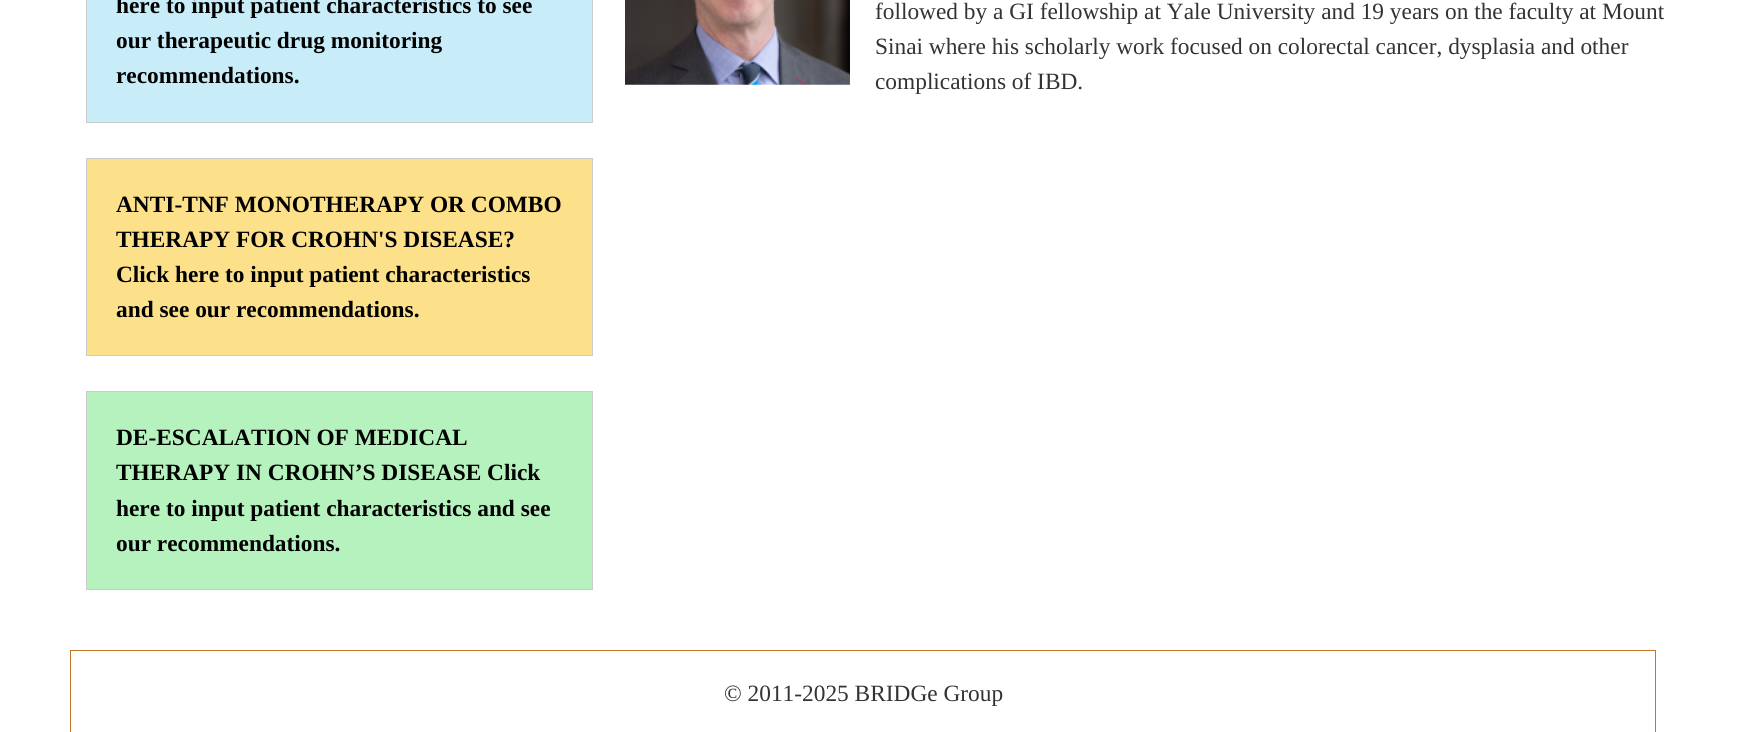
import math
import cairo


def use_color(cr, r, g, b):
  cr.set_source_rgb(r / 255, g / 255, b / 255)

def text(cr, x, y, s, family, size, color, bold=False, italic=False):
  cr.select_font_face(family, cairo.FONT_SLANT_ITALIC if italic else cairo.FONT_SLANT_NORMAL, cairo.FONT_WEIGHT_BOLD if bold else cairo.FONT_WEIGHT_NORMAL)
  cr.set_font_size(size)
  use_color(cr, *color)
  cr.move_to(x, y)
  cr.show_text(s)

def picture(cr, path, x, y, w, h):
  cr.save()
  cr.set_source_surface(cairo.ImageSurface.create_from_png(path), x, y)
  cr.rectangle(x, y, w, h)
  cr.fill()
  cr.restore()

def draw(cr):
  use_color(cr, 255, 255, 255)
  cr.paint()
  use_color(cr, 200, 237, 248)
  cr.rectangle(86.5, -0.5, 506, 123)
  cr.fill_preserve()
  use_color(cr, 204, 204, 204)
  cr.set_line_width(1)
  cr.stroke()
  use_color(cr, 252, 224, 138)
  cr.rectangle(86.5, 158.5, 506, 197)
  cr.fill_preserve()
  use_color(cr, 204, 204, 204)
  cr.stroke()
  use_color(cr, 182, 242, 190)
  cr.rectangle(86.5, 391.5, 506, 198)
  cr.fill_preserve()
  use_color(cr, 204, 204, 204)
  cr.stroke()
  picture(cr, "img_01.png", 625, 0, 225, 85)
  cr.rectangle(70.5, 650.5, 1585, 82)
  use_color(cr, 196, 117, 41)
  cr.stroke()
  text(cr, 116, 13, "here to input patient characteristics to see", "Liberation Serif", 23.35, (0, 0, 0), bold=True)
  text(cr, 116, 48, "our therapeutic drug monitoring", "Liberation Serif", 23.35, (0, 0, 0), bold=True)
  text(cr, 116, 83, "recommendations.", "Liberation Serif", 23.35, (0, 0, 0), bold=True)
  text(cr, 116, 212, "ANTI-TNF MONOTHERAPY OR COMBO", "Liberation Serif", 23.35, (0, 0, 0), bold=True)
  text(cr, 116, 247, "THERAPY FOR CROHN'S DISEASE?", "Liberation Serif", 23.35, (0, 0, 0), bold=True)
  text(cr, 116, 282, "Click here to input patient characteristics", "Liberation Serif", 23.35, (0, 0, 0), bold=True)
  text(cr, 116, 317, "and see our recommendations.", "Liberation Serif", 23.35, (0, 0, 0), bold=True)
  text(cr, 116, 445, "DE-ESCALATION OF MEDICAL", "Liberation Serif", 23.35, (0, 0, 0), bold=True)
  text(cr, 116, 480, "THERAPY IN CROHN’S DISEASE Click", "Liberation Serif", 23.35, (0, 0, 0), bold=True)
  text(cr, 116, 516, "here to input patient characteristics and see", "Liberation Serif", 23.35, (0, 0, 0), bold=True)
  text(cr, 116, 551, "our recommendations.", "Liberation Serif", 23.35, (0, 0, 0), bold=True)
  text(cr, 875, 19, "followed by a GI fellowship at Yale University and 19 years on the faculty at Mount", "Liberation Serif", 23.35, (51, 51, 51))
  text(cr, 875, 54, "Sinai where his scholarly work focused on colorectal cancer, dysplasia and other", "Liberation Serif", 23.35, (51, 51, 51))
  text(cr, 875, 89, "complications of IBD.", "Liberation Serif", 23.35, (51, 51, 51))
  text(cr, 724, 701, "© 2011-2025 BRIDGe Group", "Liberation Serif", 23.35, (51, 51, 51))


surface = cairo.ImageSurface(cairo.FORMAT_RGB24, 1756, 732)
cr = cairo.Context(surface)
options = cairo.FontOptions()
options.set_hint_metrics(cairo.HINT_METRICS_OFF)
options.set_hint_style(cairo.HINT_STYLE_NONE)
cr.set_font_options(options)
cr.set_miter_limit(4)
draw(cr)
surface.write_to_png("out.png")
